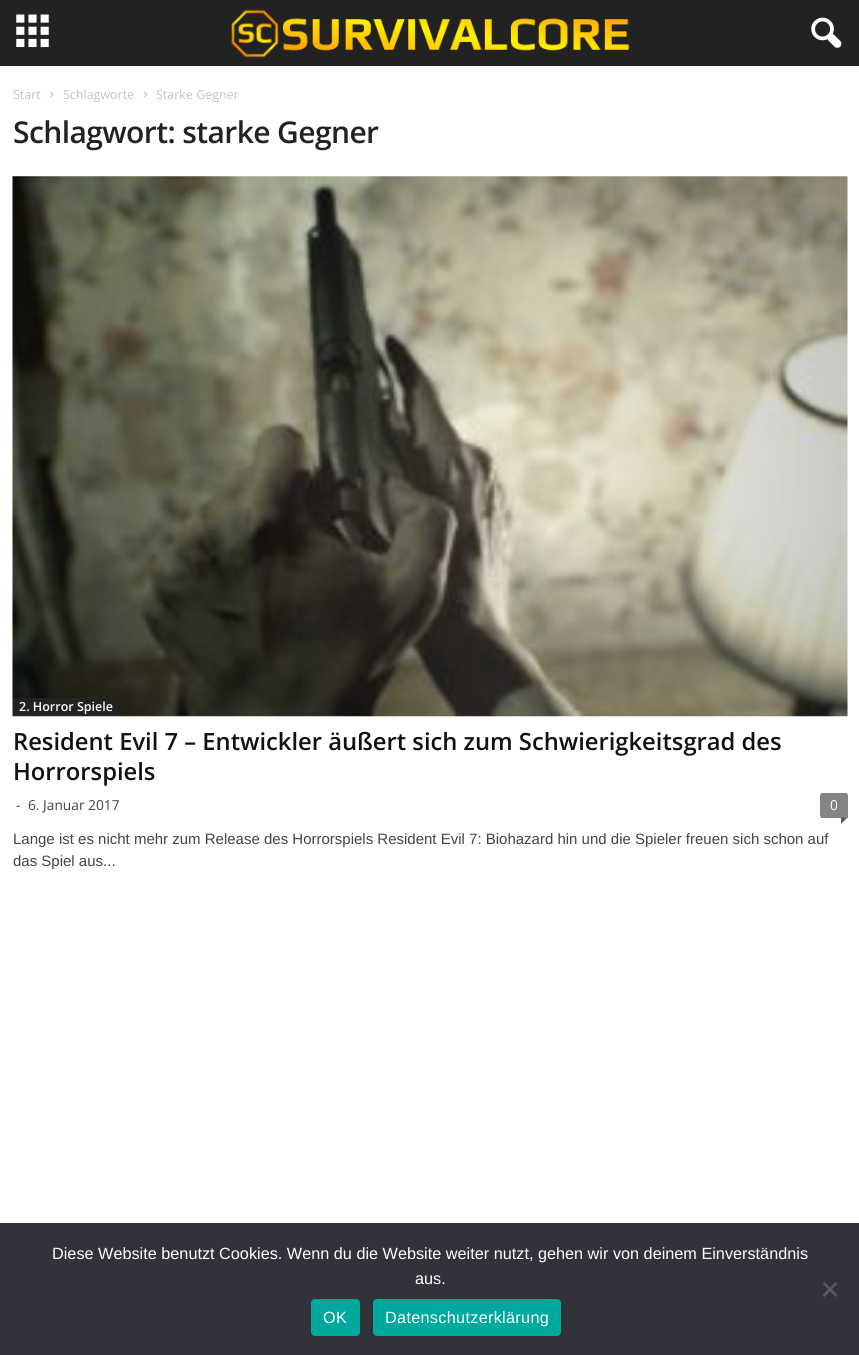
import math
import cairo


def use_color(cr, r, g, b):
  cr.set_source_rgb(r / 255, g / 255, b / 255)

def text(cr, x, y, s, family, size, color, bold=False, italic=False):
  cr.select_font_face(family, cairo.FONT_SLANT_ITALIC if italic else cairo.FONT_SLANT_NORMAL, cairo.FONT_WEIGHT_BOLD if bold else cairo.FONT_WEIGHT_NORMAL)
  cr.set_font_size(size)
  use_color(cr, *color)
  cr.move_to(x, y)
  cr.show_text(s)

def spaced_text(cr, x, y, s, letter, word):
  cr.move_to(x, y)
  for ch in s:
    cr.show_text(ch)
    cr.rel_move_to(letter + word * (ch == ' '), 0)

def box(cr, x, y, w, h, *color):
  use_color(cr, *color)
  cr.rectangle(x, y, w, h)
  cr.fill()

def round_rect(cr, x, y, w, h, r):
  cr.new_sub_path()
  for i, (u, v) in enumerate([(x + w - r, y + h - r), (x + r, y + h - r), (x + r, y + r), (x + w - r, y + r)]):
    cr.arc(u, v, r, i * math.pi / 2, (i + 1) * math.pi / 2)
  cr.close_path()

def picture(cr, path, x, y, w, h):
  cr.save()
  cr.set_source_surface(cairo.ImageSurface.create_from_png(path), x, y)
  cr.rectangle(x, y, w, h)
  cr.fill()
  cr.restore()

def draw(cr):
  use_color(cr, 255, 255, 255)
  cr.paint()
  box(cr, 0, 0, 859, 66, 34, 34, 34)
  picture(cr, "img_01.png", 16, 14, 33, 34)
  picture(cr, "img_02.png", 231, 9, 399, 49)
  picture(cr, "img_03.png", 811, 17, 31, 31)
  picture(cr, "img_04.png", 50, 91, 4, 7)
  picture(cr, "img_05.png", 143, 91, 4, 7)
  picture(cr, "img_06.png", 12, 176, 836, 541)
  cr.new_path()
  cr.move_to(13, 698)
  cr.line_to(115, 698)
  cr.curve_to(117, 698, 119, 700, 119, 702)
  cr.line_to(119, 716)
  cr.line_to(13, 716)
  cr.close_path()
  cr.fill()
  use_color(cr, 132, 132, 132)
  cr.new_path()
  cr.move_to(822.5, 793)
  cr.line_to(845.5, 793)
  cr.curve_to(847, 793, 848, 794, 848, 795.5)
  cr.line_to(848, 818)
  cr.line_to(822.5, 818)
  cr.curve_to(821, 818, 820, 817, 820, 815.5)
  cr.line_to(820, 795.5)
  cr.curve_to(820, 794, 821, 793, 822.5, 793)
  cr.close_path()
  cr.fill()
  use_color(cr, 91, 91, 91)
  cr.new_path()
  cr.move_to(841, 817.5)
  cr.line_to(847.5, 817.5)
  cr.line_to(841, 824)
  cr.close_path()
  cr.fill()
  box(cr, 0, 1223, 859, 132, 50, 50, 58)
  use_color(cr, 89, 89, 93)
  cr.new_path()
  cr.move_to(835.5, 1282)
  cr.line_to(837.5, 1283.5)
  cr.line_to(824.5, 1297)
  cr.line_to(822.5, 1295)
  cr.close_path()
  cr.fill()
  cr.new_path()
  cr.move_to(822.5, 1283.5)
  cr.line_to(824.5, 1282)
  cr.line_to(837.5, 1295)
  cr.line_to(835.5, 1297)
  cr.close_path()
  cr.fill()
  use_color(cr, 0, 169, 157)
  round_rect(cr, 311, 1299, 49, 37, 4)
  cr.fill()
  round_rect(cr, 373, 1299, 188, 37, 4)
  cr.fill()
  text(cr, 13, 99, "Start", "Open Sans", 12.5, (195, 195, 195))
  text(cr, 63, 99, "Schlagworte", "Open Sans", 12.5, (195, 195, 195))
  text(cr, 156, 99, "Starke Gegner", "Open Sans", 12.5, (195, 195, 195))
  cr.select_font_face("Open Sans SemiBold")
  cr.set_font_size(30)
  use_color(cr, 34, 34, 34)
  spaced_text(cr, 13, 143, "Schlagwort: starke Gegner", -0.6, 0)
  text(cr, 19, 711, "2. Horror Spiele", "Open Sans SemiBold", 12.5, (255, 255, 255))
  text(cr, 13, 750, "Resident Evil 7 – Entwickler äußert sich zum Schwierigkeitsgrad des", "Open Sans SemiBold", 23.75, (17, 17, 17))
  text(cr, 13, 780, "Horrorspiels", "Open Sans SemiBold", 23.75, (17, 17, 17))
  text(cr, 16, 810, "-", "Open Sans", 13.75, (68, 68, 68))
  text(cr, 28, 810, "6. Januar 2017", "Open Sans", 13.75, (68, 68, 68))
  text(cr, 830, 810, "0", "Open Sans", 13.75, (255, 255, 255))
  text(cr, 13, 844, "Lange ist es nicht mehr zum Release des Horrorspiels Resident Evil 7: Biohazard hin und die Spieler freuen sich schon auf", "Liberation Sans", 15, (68, 68, 68))
  text(cr, 13, 866, "das Spiel aus...", "Liberation Sans", 15, (68, 68, 68))
  text(cr, 52, 1259, "Diese Website benutzt Cookies. Wenn du die Website weiter nutzt, gehen wir von deinem Einverständnis", "Liberation Sans", 16.25, (255, 255, 255))
  text(cr, 415, 1284, "aus.", "Liberation Sans", 16.25, (255, 255, 255))
  spaced_text(cr, 323, 1323, "OK", 0.3, 0)
  spaced_text(cr, 385, 1323, "Datenschutzerklärung", 0.3, 0)


surface = cairo.ImageSurface(cairo.FORMAT_RGB24, 859, 1355)
cr = cairo.Context(surface)
options = cairo.FontOptions()
options.set_hint_metrics(cairo.HINT_METRICS_OFF)
options.set_hint_style(cairo.HINT_STYLE_NONE)
cr.set_font_options(options)
cr.set_miter_limit(4)
draw(cr)
surface.write_to_png("out.png")
